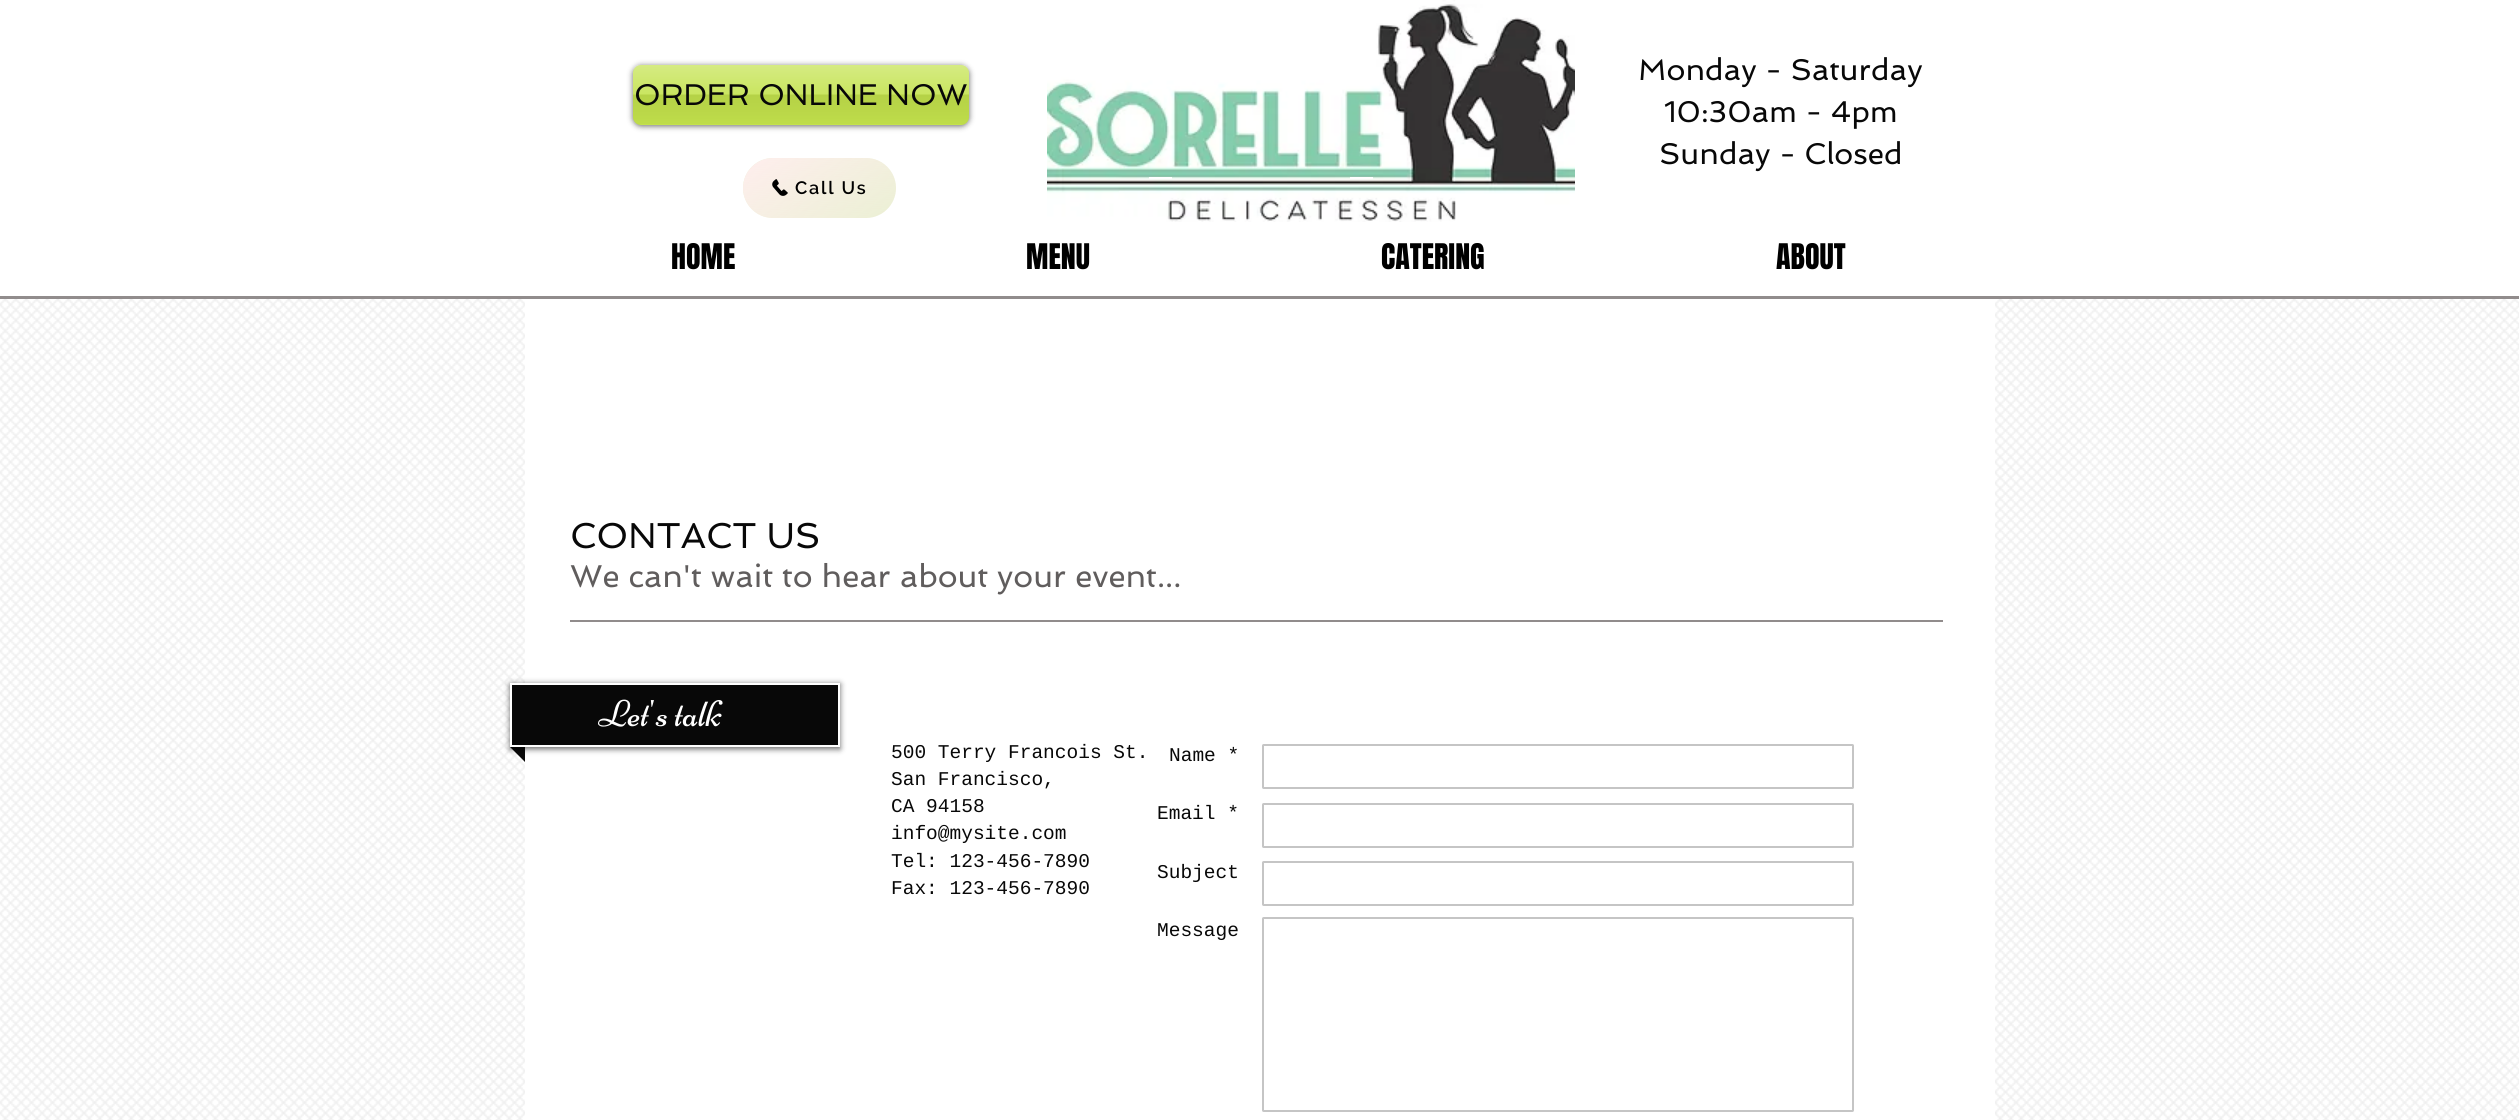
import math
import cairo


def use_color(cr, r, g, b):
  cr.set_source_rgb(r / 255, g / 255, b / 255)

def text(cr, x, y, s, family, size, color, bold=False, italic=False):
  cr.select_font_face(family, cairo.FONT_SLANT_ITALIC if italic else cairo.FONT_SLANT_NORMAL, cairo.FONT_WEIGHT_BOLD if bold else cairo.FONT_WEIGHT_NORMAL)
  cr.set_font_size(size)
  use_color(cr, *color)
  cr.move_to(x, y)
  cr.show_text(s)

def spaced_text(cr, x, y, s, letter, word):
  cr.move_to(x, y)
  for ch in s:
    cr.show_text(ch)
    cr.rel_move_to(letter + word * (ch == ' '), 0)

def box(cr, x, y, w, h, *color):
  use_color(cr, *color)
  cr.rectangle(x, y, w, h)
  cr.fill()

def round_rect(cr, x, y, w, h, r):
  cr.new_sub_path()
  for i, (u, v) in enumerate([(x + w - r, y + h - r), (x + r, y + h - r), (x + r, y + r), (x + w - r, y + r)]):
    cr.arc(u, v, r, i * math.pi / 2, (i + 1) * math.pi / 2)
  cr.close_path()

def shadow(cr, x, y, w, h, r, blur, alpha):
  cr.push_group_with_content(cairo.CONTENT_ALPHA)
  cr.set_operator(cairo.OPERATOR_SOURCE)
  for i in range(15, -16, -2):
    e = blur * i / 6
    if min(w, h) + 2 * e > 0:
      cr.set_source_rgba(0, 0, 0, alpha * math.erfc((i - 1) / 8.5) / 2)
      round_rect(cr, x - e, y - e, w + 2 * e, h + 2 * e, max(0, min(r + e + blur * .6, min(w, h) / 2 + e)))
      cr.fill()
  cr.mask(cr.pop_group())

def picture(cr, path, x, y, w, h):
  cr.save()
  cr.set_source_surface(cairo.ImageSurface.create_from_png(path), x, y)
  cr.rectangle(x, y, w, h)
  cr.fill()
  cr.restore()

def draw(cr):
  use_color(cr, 255, 255, 255)
  cr.paint()
  use_color(cr, 0, 0, 0)
  shadow(cr, 633, 66, 336, 60, 8, 3, 0.6)
  use_color(cr, 195, 226, 76)
  round_rect(cr, 633, 65, 336, 60, 8)
  cr.fill()
  picture(cr, "img_01.png", 633, 65, 336, 59)
  picture(cr, "img_02.png", 1047, 0, 528, 222)
  box(cr, 1149, 177, 23, 2, 255, 255, 255)
  box(cr, 1350, 177, 23, 2, 255, 255, 255)
  use_color(cr, 235, 240, 212)
  round_rect(cr, 743, 158, 153, 60, 30)
  cr.fill()
  gradient = cairo.LinearGradient(780, 131, 858, 244)
  gradient.add_color_stop_rgba(0, 1, 0.933, 0.933, 1)
  gradient.add_color_stop_rgba(1, 1, 0.933, 0.933, 0)
  cr.set_source(gradient)
  round_rect(cr, 743, 158, 153, 60, 30)
  cr.fill()
  picture(cr, "img_03.png", 772, 179, 16, 17)
  box(cr, 0, 296, 2519, 3, 145, 140, 140)
  picture(cr, "img_05.png", 0, 299, 2519, 821)
  box(cr, 525, 299, 1470, 821, 255, 255, 255)
  box(cr, 570, 620, 1373, 2, 145, 140, 140)
  use_color(cr, 8, 8, 8)
  cr.new_path()
  cr.move_to(510, 747)
  cr.line_to(525, 747)
  cr.line_to(525, 762)
  cr.close_path()
  cr.fill()
  use_color(cr, 0, 0, 0)
  shadow(cr, 510, 684, 330, 65, 0, 3, 0.6)
  use_color(cr, 8, 8, 8)
  cr.rectangle(511, 684, 328, 62)
  cr.fill_preserve()
  use_color(cr, 255, 255, 255)
  cr.stroke()
  picture(cr, "img_04.png", 598, 699, 125, 28)
  round_rect(cr, 1263, 745, 590, 43, 0.5)
  use_color(cr, 197, 197, 197)
  cr.stroke()
  round_rect(cr, 1263, 804, 590, 43, 0.5)
  cr.stroke()
  round_rect(cr, 1263, 862, 590, 43, 0.5)
  cr.stroke()
  round_rect(cr, 1263, 918, 590, 193, 0.5)
  cr.stroke()
  text(cr, 634, 105, "ORDER ONLINE NOW", "Spinnaker", 30, (8, 8, 8))
  text(cr, 1638, 80, "Monday - Saturday", "Spinnaker", 30, (8, 8, 8))
  text(cr, 1664, 122, "10:30am - 4pm", "Spinnaker", 30, (8, 8, 8))
  text(cr, 1659, 164, "Sunday - Closed", "Spinnaker", 30, (8, 8, 8))
  cr.select_font_face("Raleway SemiBold")
  cr.set_font_size(18)
  use_color(cr, 0, 0, 0)
  spaced_text(cr, 795, 194, "Call Us", 1.75, 0)
  text(cr, 671, 269, "HOME", "Anton", 30, (0, 0, 0))
  text(cr, 1026, 269, "MENU", "Anton", 30, (0, 0, 0))
  text(cr, 1381, 269, "CATERING", "Anton", 30, (0, 0, 0))
  text(cr, 1776, 269, "ABOUT", "Anton", 30, (0, 0, 0))
  text(cr, 570, 548, "CONTACT US", "Spinnaker", 36, (8, 8, 8))
  text(cr, 570, 587, "We can't wait to hear about your event...", "Spinnaker", 31.5, (96, 93, 93))
  text(cr, 891, 758, "500 Terry Francois St.", "Liberation Mono", 19.5, (8, 8, 8))
  text(cr, 891, 785, "San Francisco,", "Liberation Mono", 19.5, (8, 8, 8))
  text(cr, 891, 812, "CA 94158", "Liberation Mono", 19.5, (8, 8, 8))
  text(cr, 891, 839, "info@mysite.com", "Liberation Mono", 19.5, (8, 8, 8))
  text(cr, 891, 867, "Tel: 123-456-7890", "Liberation Mono", 19.5, (8, 8, 8))
  text(cr, 891, 894, "Fax: 123-456-7890", "Liberation Mono", 19.5, (8, 8, 8))
  text(cr, 1169, 761, "Name *", "Liberation Mono", 19.5, (8, 8, 8))
  text(cr, 1157, 819, "Email *", "Liberation Mono", 19.5, (8, 8, 8))
  text(cr, 1157, 878, "Subject", "Liberation Mono", 19.5, (8, 8, 8))
  text(cr, 1157, 936, "Message", "Liberation Mono", 19.5, (8, 8, 8))


surface = cairo.ImageSurface(cairo.FORMAT_RGB24, 2519, 1120)
cr = cairo.Context(surface)
options = cairo.FontOptions()
options.set_hint_metrics(cairo.HINT_METRICS_OFF)
options.set_hint_style(cairo.HINT_STYLE_NONE)
cr.set_font_options(options)
cr.set_miter_limit(4)
draw(cr)
surface.write_to_png("out.png")
